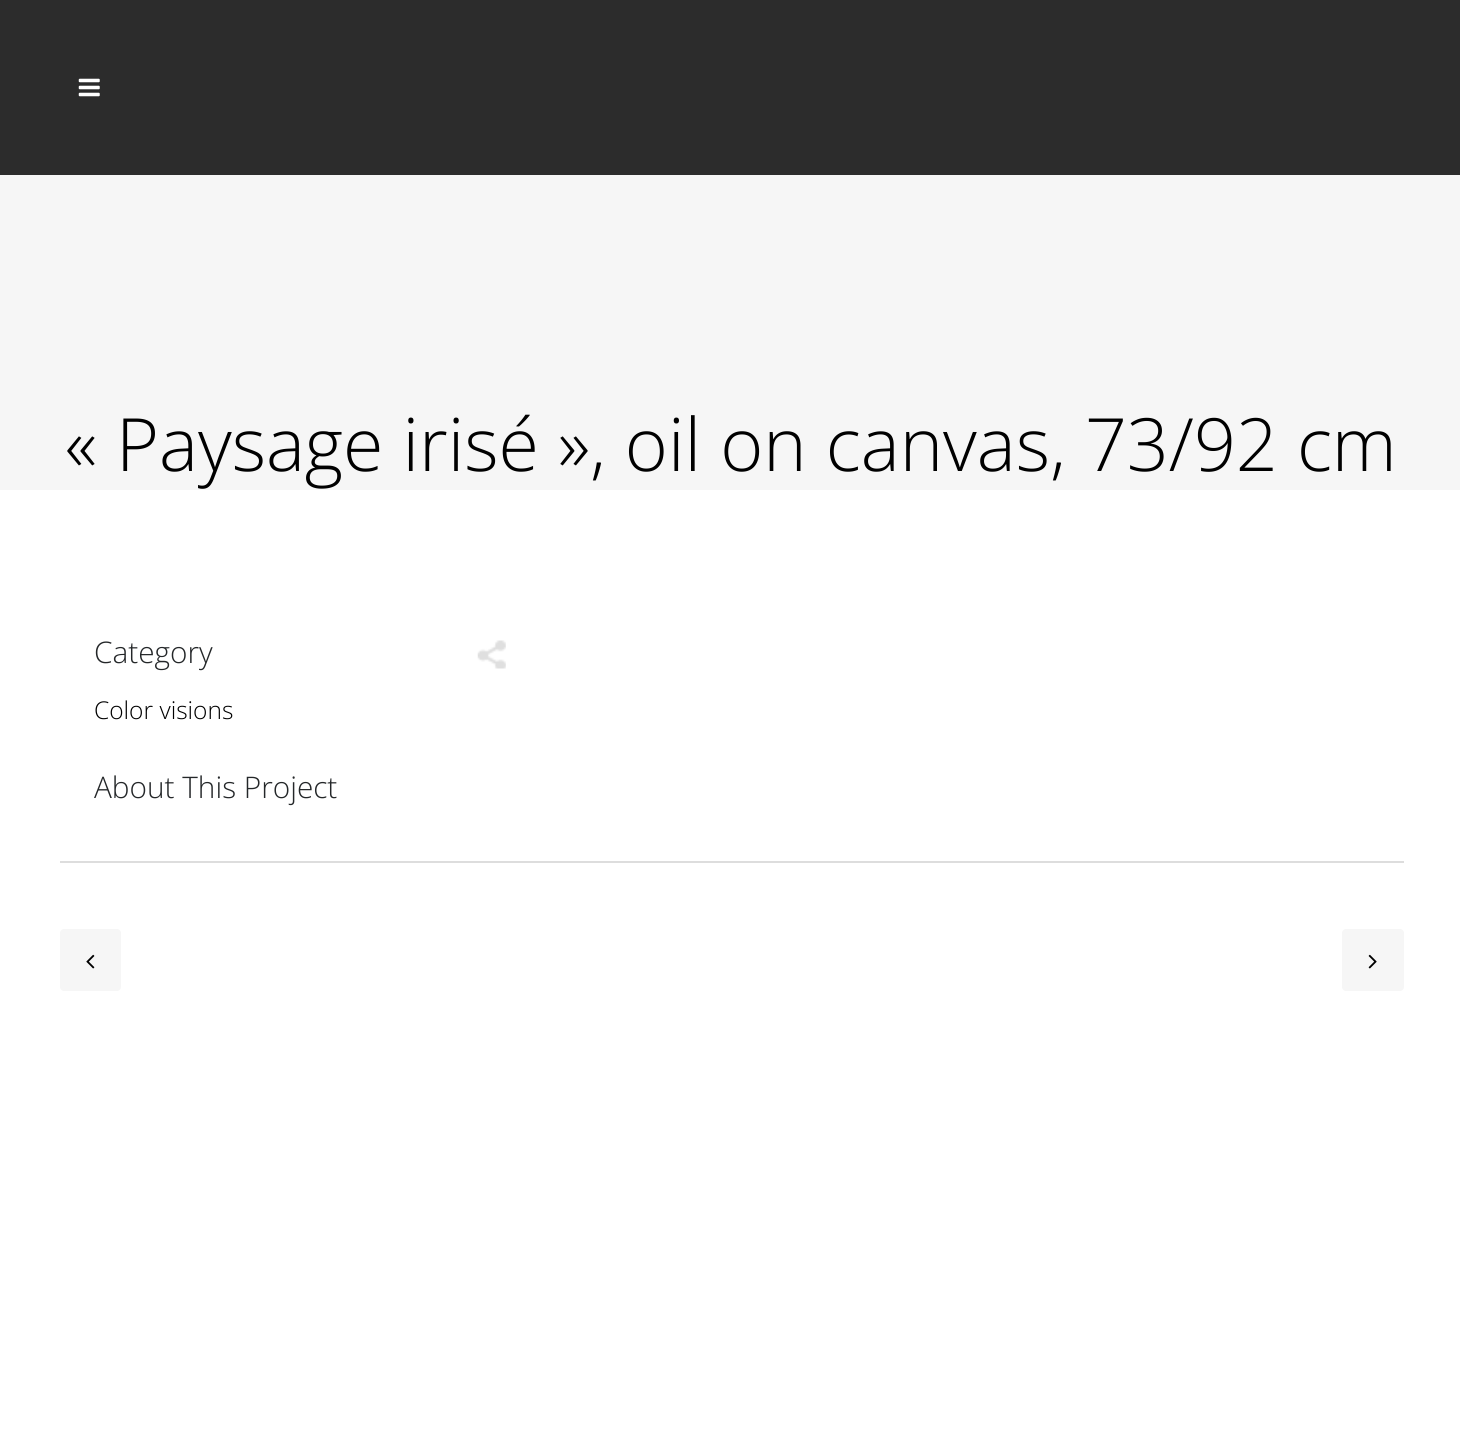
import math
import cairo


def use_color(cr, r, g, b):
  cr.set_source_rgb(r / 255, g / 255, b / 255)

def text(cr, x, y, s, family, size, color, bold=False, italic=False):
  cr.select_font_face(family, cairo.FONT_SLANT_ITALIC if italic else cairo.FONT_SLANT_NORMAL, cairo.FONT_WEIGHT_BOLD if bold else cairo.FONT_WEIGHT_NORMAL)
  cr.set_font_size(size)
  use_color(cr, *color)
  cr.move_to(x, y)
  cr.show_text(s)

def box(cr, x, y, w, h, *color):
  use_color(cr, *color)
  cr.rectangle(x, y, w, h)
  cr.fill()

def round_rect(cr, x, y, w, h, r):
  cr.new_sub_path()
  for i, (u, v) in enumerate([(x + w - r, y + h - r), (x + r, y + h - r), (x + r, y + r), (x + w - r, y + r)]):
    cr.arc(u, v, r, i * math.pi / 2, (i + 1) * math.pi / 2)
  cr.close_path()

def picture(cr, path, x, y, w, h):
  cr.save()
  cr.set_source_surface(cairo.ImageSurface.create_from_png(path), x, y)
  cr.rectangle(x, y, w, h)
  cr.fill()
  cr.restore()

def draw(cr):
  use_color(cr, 255, 255, 255)
  cr.paint()
  box(cr, 0, 0, 1460, 175, 44, 44, 44)
  picture(cr, "img_01.png", 78, 78, 22, 19)
  box(cr, 0, 175, 1460, 315, 246, 246, 246)
  picture(cr, "img_02.png", 477, 640, 29, 29)
  box(cr, 60, 861, 1344, 2, 221, 221, 221)
  use_color(cr, 246, 246, 246)
  round_rect(cr, 60, 929, 61, 62, 4)
  cr.fill()
  picture(cr, "img_03.png", 86, 954, 9, 15)
  round_rect(cr, 1342, 929, 62, 62, 4)
  cr.fill()
  picture(cr, "img_04.png", 1368, 954, 9, 15)
  text(cr, 65, 471, "« Paysage irisé », oil on canvas, 73/92 cm", "Open Sans Light", 73.5, (0, 0, 0))
  text(cr, 94, 663, "Category", "Open Sans Light", 29.75, (36, 39, 41))
  text(cr, 94, 719, "Color visions", "Open Sans Light", 24.5, (0, 0, 0))
  text(cr, 94, 798, "About This Project", "Open Sans Light", 29.75, (36, 39, 41))


surface = cairo.ImageSurface(cairo.FORMAT_RGB24, 1460, 1435)
cr = cairo.Context(surface)
options = cairo.FontOptions()
options.set_hint_metrics(cairo.HINT_METRICS_OFF)
options.set_hint_style(cairo.HINT_STYLE_NONE)
cr.set_font_options(options)
cr.set_miter_limit(4)
draw(cr)
surface.write_to_png("out.png")
